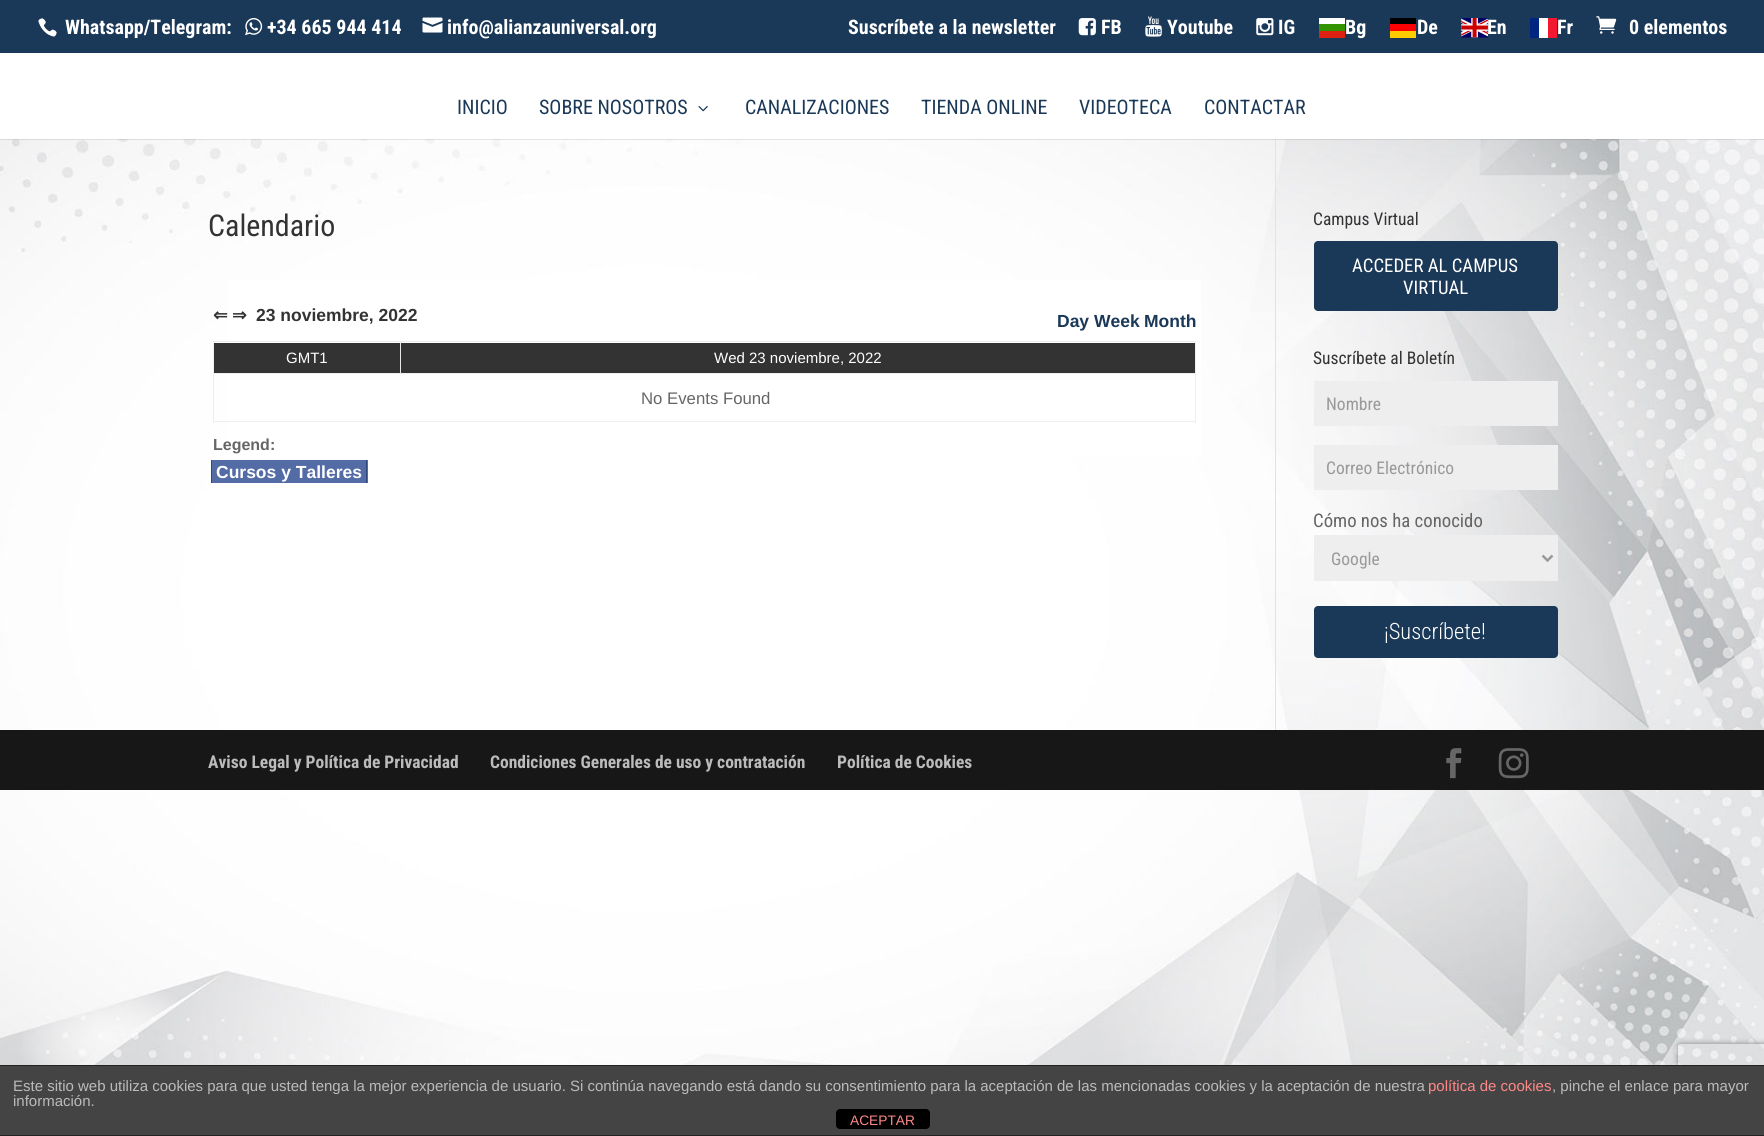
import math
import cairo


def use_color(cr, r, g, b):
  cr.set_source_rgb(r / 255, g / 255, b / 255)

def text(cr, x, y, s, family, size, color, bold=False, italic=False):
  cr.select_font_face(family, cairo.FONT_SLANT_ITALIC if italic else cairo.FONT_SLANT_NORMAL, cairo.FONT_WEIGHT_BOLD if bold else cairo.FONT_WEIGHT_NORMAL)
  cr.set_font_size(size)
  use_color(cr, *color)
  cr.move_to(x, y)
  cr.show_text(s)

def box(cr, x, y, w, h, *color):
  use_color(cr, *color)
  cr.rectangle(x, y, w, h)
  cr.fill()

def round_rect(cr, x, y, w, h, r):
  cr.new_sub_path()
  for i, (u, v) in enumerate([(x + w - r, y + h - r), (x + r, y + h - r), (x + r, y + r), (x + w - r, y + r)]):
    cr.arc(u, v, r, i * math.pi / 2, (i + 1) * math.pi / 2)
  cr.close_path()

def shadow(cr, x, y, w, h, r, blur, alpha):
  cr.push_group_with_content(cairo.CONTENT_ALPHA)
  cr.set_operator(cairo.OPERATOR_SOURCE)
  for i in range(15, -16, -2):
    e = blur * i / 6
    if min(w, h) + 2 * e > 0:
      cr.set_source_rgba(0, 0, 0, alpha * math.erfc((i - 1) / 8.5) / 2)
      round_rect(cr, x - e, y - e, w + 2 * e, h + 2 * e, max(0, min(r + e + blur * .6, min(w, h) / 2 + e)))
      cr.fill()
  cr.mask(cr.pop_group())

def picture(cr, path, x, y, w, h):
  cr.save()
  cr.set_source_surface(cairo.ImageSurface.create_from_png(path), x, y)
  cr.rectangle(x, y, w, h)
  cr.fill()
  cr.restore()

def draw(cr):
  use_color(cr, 255, 255, 255)
  cr.paint()
  picture(cr, "img_01.png", 0, 139, 1764, 926)
  box(cr, 0, 0, 1764, 53, 26, 56, 87)
  picture(cr, "img_02.png", 38, 18, 19, 19)
  picture(cr, "img_03.png", 245, 18, 18, 18)
  picture(cr, "img_04.png", 422, 17, 21, 16)
  picture(cr, "img_05.png", 1078, 18, 18, 18)
  picture(cr, "img_06.png", 1145, 16, 17, 21)
  picture(cr, "img_07.png", 1256, 18, 18, 18)
  box(cr, 1319, 31, 26, 7, 222, 33, 16)
  box(cr, 1319, 18, 26, 6, 255, 255, 255)
  box(cr, 1319, 24, 26, 7, 49, 148, 0)
  box(cr, 1390, 31, 26, 7, 255, 204, 0)
  box(cr, 1390, 18, 26, 6, 0, 0, 0)
  box(cr, 1390, 24, 26, 7, 255, 0, 0)
  picture(cr, "img_08.png", 1461, 18, 27, 20)
  box(cr, 1539, 18, 9, 20, 255, 255, 255)
  box(cr, 1530, 18, 9, 20, 0, 38, 127)
  box(cr, 1548, 18, 9, 20, 243, 24, 48)
  picture(cr, "img_09.png", 1596, 16, 21, 18)
  box(cr, 1275, 138, 1, 592, 226, 226, 226)
  cr.set_source_rgba(0, 0, 0, 0.1)
  cr.rectangle(0, 139, 1764, 1)
  cr.fill()
  box(cr, 1275, 138, 1, 1, 255, 255, 255)
  picture(cr, "img_10.png", 698, 106, 10, 6)
  box(cr, 228, 280, 973, 176, 255, 255, 255)
  box(cr, 213, 341, 983, 1, 238, 238, 238)
  box(cr, 1195, 341, 1, 82, 238, 238, 238)
  box(cr, 213, 421, 983, 1, 238, 238, 238)
  box(cr, 213, 341, 1, 82, 238, 238, 238)
  box(cr, 214, 343, 186, 30, 51, 51, 51)
  box(cr, 213, 373, 983, 1, 238, 238, 238)
  box(cr, 400, 341, 1, 33, 231, 231, 231)
  box(cr, 401, 343, 794, 30, 51, 51, 51)
  box(cr, 212, 460, 156, 23, 83, 108, 166)
  box(cr, 366, 460, 1, 23, 48, 72, 126)
  box(cr, 211, 460, 1, 23, 48, 72, 126)
  use_color(cr, 26, 56, 87)
  round_rect(cr, 1314, 241, 244, 70, 4)
  cr.fill()
  box(cr, 1314, 381, 244, 45, 238, 238, 238)
  box(cr, 1314, 445, 244, 45, 238, 238, 238)
  box(cr, 1314, 535, 244, 46, 238, 238, 238)
  cr.new_path()
  cr.move_to(1542.5, 555.5)
  cr.line_to(1547.5, 560.5)
  cr.line_to(1552.5, 555.5)
  use_color(cr, 153, 153, 153)
  cr.set_line_width(2.5)
  cr.stroke()
  use_color(cr, 26, 56, 87)
  round_rect(cr, 1314, 606, 244, 52, 4)
  cr.fill()
  box(cr, 0, 730, 1764, 60, 23, 23, 23)
  picture(cr, "img_11.png", 1446, 748, 16, 31)
  picture(cr, "img_12.png", 1498, 748, 31, 31)
  cr.save()
  cr.set_fill_rule(cairo.FILL_RULE_EVEN_ODD)
  cr.new_path()
  cr.move_to(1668, 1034)
  cr.line_to(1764, 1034)
  cr.line_to(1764, 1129)
  cr.line_to(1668, 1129)
  cr.close_path()
  cr.move_to(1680.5, 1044)
  cr.line_to(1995.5, 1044)
  cr.curve_to(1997, 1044, 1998, 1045, 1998, 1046.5)
  cr.line_to(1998, 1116.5)
  cr.curve_to(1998, 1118, 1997, 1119, 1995.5, 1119)
  cr.line_to(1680.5, 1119)
  cr.curve_to(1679, 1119, 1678, 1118, 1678, 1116.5)
  cr.line_to(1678, 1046.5)
  cr.curve_to(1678, 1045, 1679, 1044, 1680.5, 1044)
  cr.close_path()
  cr.clip()
  use_color(cr, 128, 128, 128)
  shadow(cr, 1678, 1044, 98, 75, 2.5, 3, 1)
  cr.restore()
  box(cr, 0, 1066, 1764, 69, 68, 68, 68)
  box(cr, 0, 1065, 1764, 1, 34, 34, 34)
  box(cr, 0, 1135, 1764, 1, 34, 34, 34)
  use_color(cr, 0, 0, 0)
  round_rect(cr, 836, 1109, 94, 20, 4)
  cr.fill()
  text(cr, 65, 34, "Whatsapp/Telegram:", "Roboto Condensed", 20, (255, 255, 255), bold=True)
  text(cr, 267, 34, "+34 665 944 414", "Roboto Condensed", 20, (255, 255, 255), bold=True)
  text(cr, 447, 34, "info@alianzauniversal.org", "Roboto Condensed", 20, (255, 255, 255), bold=True)
  text(cr, 848, 34, "Suscríbete a la newsletter", "Roboto Condensed", 20, (255, 255, 255), bold=True)
  text(cr, 1101, 34, "FB", "Roboto Condensed", 20, (255, 255, 255), bold=True)
  text(cr, 1167, 34, "Youtube", "Roboto Condensed", 20, (255, 255, 255), bold=True)
  text(cr, 1278, 34, "IG", "Roboto Condensed", 20, (255, 255, 255), bold=True)
  text(cr, 1345, 34, "Bg", "Roboto Condensed", 20, (255, 255, 255), bold=True)
  text(cr, 1417, 34, "De", "Roboto Condensed", 20, (255, 255, 255), bold=True)
  text(cr, 1487, 34, "En", "Roboto Condensed", 20, (255, 255, 255), bold=True)
  text(cr, 1557, 34, "Fr", "Roboto Condensed", 20, (255, 255, 255), bold=True)
  text(cr, 1629, 34, "0 elementos", "Roboto Condensed", 20, (255, 255, 255), bold=True)
  text(cr, 457, 114, "INICIO", "Roboto Condensed", 20, (26, 56, 87))
  text(cr, 539, 114, "SOBRE NOSOTROS", "Roboto Condensed", 20, (26, 56, 87))
  text(cr, 745, 114, "CANALIZACIONES", "Roboto Condensed", 20, (26, 56, 87))
  text(cr, 921, 114, "TIENDA ONLINE", "Roboto Condensed", 20, (26, 56, 87))
  text(cr, 1079, 114, "VIDEOTECA", "Roboto Condensed", 20, (26, 56, 87))
  text(cr, 1204, 114, "CONTACTAR", "Roboto Condensed", 20, (26, 56, 87))
  text(cr, 208, 236, "Calendario", "Roboto Condensed", 30, (51, 51, 51))
  text(cr, 213, 321, "⇐", "DejaVu Sans", 17.5, (51, 51, 51), bold=True)
  text(cr, 232, 321, "⇒", "DejaVu Sans", 17.5, (51, 51, 51), bold=True)
  text(cr, 256, 321, "23 noviembre, 2022", "Liberation Sans", 17.5, (51, 51, 51), bold=True)
  text(cr, 1057, 327, "Day", "Liberation Sans", 17.5, (26, 56, 87), bold=True)
  text(cr, 1094, 327, "Week", "Liberation Sans", 17.5, (26, 56, 87), bold=True)
  text(cr, 1144, 327, "Month", "Liberation Sans", 17.5, (26, 56, 87), bold=True)
  text(cr, 286, 363, "GMT1", "Liberation Sans", 15, (255, 255, 255))
  text(cr, 714, 363, "Wed 23 noviembre, 2022", "Liberation Sans", 15, (255, 255, 255))
  text(cr, 641, 404, "No Events Found", "Liberation Sans", 16.75, (102, 102, 102))
  text(cr, 213, 450, "Legend:", "Liberation Sans", 16, (102, 102, 102), bold=True)
  text(cr, 216, 478, "Cursos y Talleres", "Liberation Sans", 17.5, (255, 255, 255), bold=True)
  text(cr, 1313, 225, "Campus Virtual", "Roboto Condensed", 17.5, (51, 51, 51))
  text(cr, 1352, 272, "ACCEDER AL CAMPUS", "Roboto Condensed", 18.75, (255, 255, 255))
  text(cr, 1403, 294, "VIRTUAL", "Roboto Condensed", 18.75, (255, 255, 255))
  text(cr, 1313, 364, "Suscríbete al Boletín", "Roboto Condensed", 17.5, (51, 51, 51))
  text(cr, 1326, 410, "Nombre", "Roboto Condensed", 17.5, (153, 153, 153))
  text(cr, 1326, 474, "Correo Electrónico", "Roboto Condensed", 17.5, (153, 153, 153))
  text(cr, 1313, 527, "Cómo nos ha conocido", "Roboto Condensed", 18.75, (102, 102, 102))
  text(cr, 1331, 565, "Google", "Roboto Condensed", 17.5, (153, 153, 153))
  text(cr, 1384, 639, "¡Suscríbete!", "Roboto Condensed Light", 22.5, (255, 255, 255))
  text(cr, 208, 768, "Aviso Legal y Política de Privacidad", "Roboto Condensed", 17.5, (187, 187, 187), bold=True)
  text(cr, 490, 768, "Condiciones Generales de uso y contratación", "Roboto Condensed", 17.5, (187, 187, 187), bold=True)
  text(cr, 837, 768, "Política de Cookies", "Roboto Condensed", 17.5, (187, 187, 187), bold=True)
  text(cr, 13, 1091, "Este sitio web utiliza cookies para que usted tenga la mejor experiencia de usuario. Si continúa navegando está dando su consentimiento para la aceptación de las mencionadas cookies y la aceptación de nuestra", "Liberation Sans", 15, (187, 187, 187))
  text(cr, 1428, 1091, "política de cookies", "Liberation Sans", 15, (255, 136, 136))
  text(cr, 1552, 1091, ", pinche el enlace para mayor", "Liberation Sans", 15, (187, 187, 187))
  text(cr, 13, 1106, "información.", "Liberation Sans", 15, (187, 187, 187))
  text(cr, 850, 1125, "ACEPTAR", "Liberation Sans", 13.75, (255, 136, 136))


surface = cairo.ImageSurface(cairo.FORMAT_RGB24, 1764, 1136)
cr = cairo.Context(surface)
options = cairo.FontOptions()
options.set_hint_metrics(cairo.HINT_METRICS_OFF)
options.set_hint_style(cairo.HINT_STYLE_NONE)
cr.set_font_options(options)
cr.set_miter_limit(4)
draw(cr)
surface.write_to_png("out.png")
